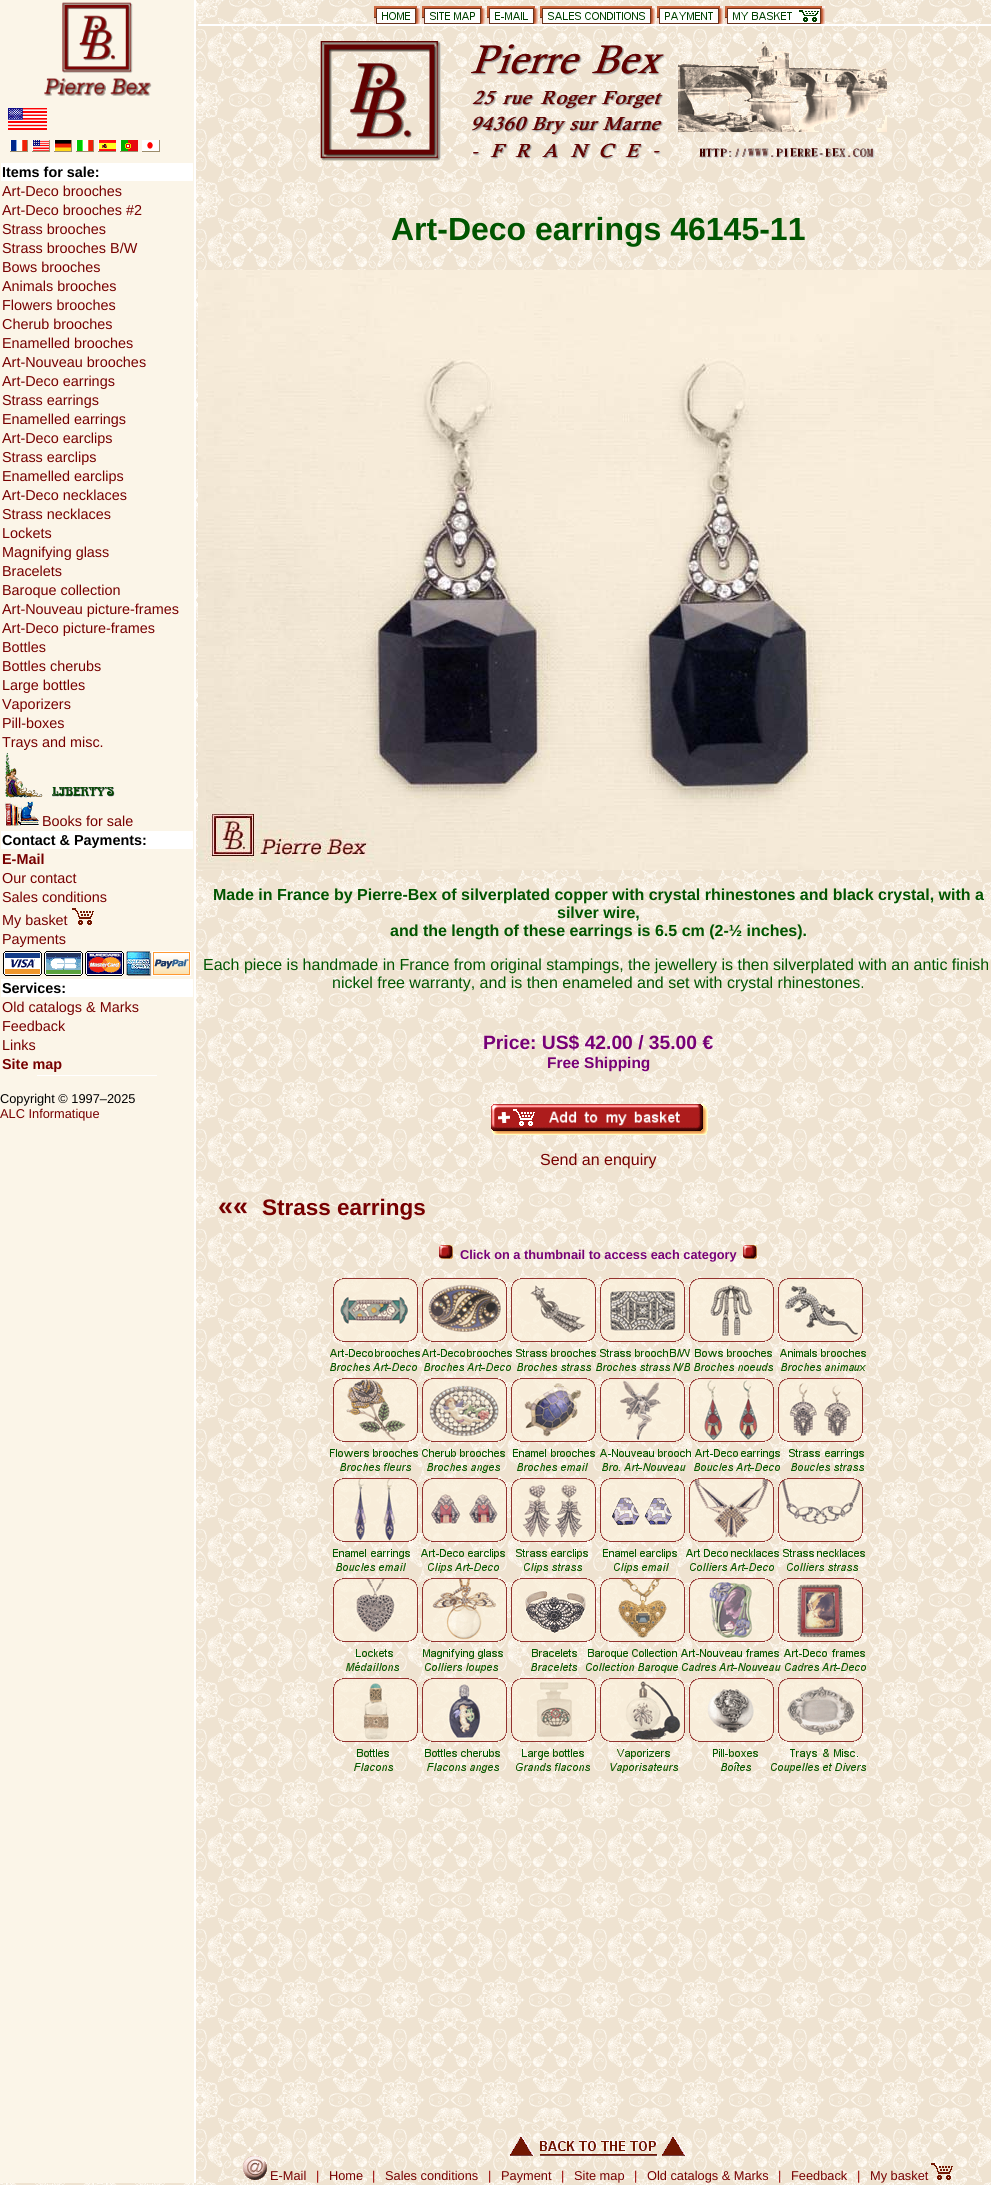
import math
import cairo


def use_color(cr, r, g, b):
  cr.set_source_rgb(r / 255, g / 255, b / 255)

def text(cr, x, y, s, family, size, color, bold=False, italic=False):
  cr.select_font_face(family, cairo.FONT_SLANT_ITALIC if italic else cairo.FONT_SLANT_NORMAL, cairo.FONT_WEIGHT_BOLD if bold else cairo.FONT_WEIGHT_NORMAL)
  cr.set_font_size(size)
  use_color(cr, *color)
  cr.move_to(x, y)
  cr.show_text(s)

def box(cr, x, y, w, h, *color):
  use_color(cr, *color)
  cr.rectangle(x, y, w, h)
  cr.fill()

def picture(cr, path, x, y, w, h):
  cr.save()
  cr.set_source_surface(cairo.ImageSurface.create_from_png(path), x, y)
  cr.rectangle(x, y, w, h)
  cr.fill()
  cr.restore()

def draw(cr):
  use_color(cr, 255, 255, 255)
  cr.paint()
  picture(cr, "img_01.png", 0, 0, 991, 2185)
  box(cr, 198, 24, 793, 2, 255, 255, 255)
  picture(cr, "img_02.png", 374, 6, 46, 18)
  picture(cr, "img_03.png", 422, 6, 63, 18)
  picture(cr, "img_04.png", 487, 6, 51, 18)
  picture(cr, "img_05.png", 540, 6, 115, 18)
  picture(cr, "img_06.png", 657, 6, 66, 18)
  picture(cr, "img_07.png", 725, 6, 100, 18)
  picture(cr, "img_08.png", 320, 39, 567, 122)
  box(cr, 0, 0, 194, 2183, 251, 245, 232)
  box(cr, 194, 0, 2, 2183, 255, 255, 255)
  picture(cr, "img_09.png", 44, 2, 108, 94)
  picture(cr, "img_10.png", 8, 108, 39, 22)
  picture(cr, "img_11.png", 10, 140, 18, 12)
  picture(cr, "img_12.png", 32, 140, 18, 12)
  picture(cr, "img_13.png", 54, 140, 18, 12)
  picture(cr, "img_14.png", 76, 140, 18, 12)
  picture(cr, "img_15.png", 98, 140, 18, 12)
  picture(cr, "img_16.png", 120, 140, 18, 12)
  picture(cr, "img_17.png", 142, 140, 18, 12)
  box(cr, 1, 163, 192, 18, 255, 255, 255)
  picture(cr, "img_18.png", 5, 753, 110, 45)
  picture(cr, "img_19.png", 5, 801, 34, 25)
  box(cr, 1, 831, 192, 18, 255, 255, 255)
  picture(cr, "img_20.png", 72, 908, 22, 17)
  picture(cr, "img_21.png", 3, 951, 188, 25)
  box(cr, 1, 979, 192, 18, 255, 255, 255)
  box(cr, 37, 1075, 120, 1, 255, 255, 255)
  picture(cr, "img_22.png", 198, 270, 793, 600)
  picture(cr, "img_23.png", 491, 1104, 217, 31)
  picture(cr, "img_24.png", 439, 1245, 14, 14)
  picture(cr, "img_25.png", 743, 1245, 14, 14)
  picture(cr, "img_26.png", 333, 1278, 85, 64)
  picture(cr, "img_27.png", 422, 1278, 85, 64)
  picture(cr, "img_28.png", 511, 1278, 85, 64)
  picture(cr, "img_29.png", 600, 1278, 85, 64)
  picture(cr, "img_30.png", 689, 1278, 85, 64)
  picture(cr, "img_31.png", 778, 1278, 85, 64)
  picture(cr, "img_32.png", 330, 1349, 536, 22)
  picture(cr, "img_33.png", 333, 1378, 85, 64)
  picture(cr, "img_34.png", 422, 1378, 85, 64)
  picture(cr, "img_35.png", 511, 1378, 85, 64)
  picture(cr, "img_36.png", 600, 1378, 85, 64)
  picture(cr, "img_37.png", 689, 1378, 85, 64)
  picture(cr, "img_38.png", 778, 1378, 85, 64)
  picture(cr, "img_39.png", 330, 1449, 534, 24)
  picture(cr, "img_40.png", 333, 1478, 85, 64)
  picture(cr, "img_41.png", 422, 1478, 85, 64)
  picture(cr, "img_42.png", 511, 1478, 85, 64)
  picture(cr, "img_43.png", 600, 1478, 85, 64)
  picture(cr, "img_44.png", 689, 1478, 85, 64)
  picture(cr, "img_45.png", 778, 1478, 85, 64)
  picture(cr, "img_46.png", 333, 1549, 532, 24)
  picture(cr, "img_47.png", 333, 1578, 85, 64)
  picture(cr, "img_48.png", 422, 1578, 85, 64)
  picture(cr, "img_49.png", 511, 1578, 85, 64)
  picture(cr, "img_50.png", 600, 1578, 85, 64)
  picture(cr, "img_51.png", 689, 1578, 85, 64)
  picture(cr, "img_52.png", 778, 1578, 85, 64)
  picture(cr, "img_53.png", 346, 1649, 520, 24)
  picture(cr, "img_54.png", 333, 1678, 85, 64)
  picture(cr, "img_55.png", 422, 1678, 85, 64)
  picture(cr, "img_56.png", 511, 1678, 85, 64)
  picture(cr, "img_57.png", 600, 1678, 85, 64)
  picture(cr, "img_58.png", 689, 1678, 85, 64)
  picture(cr, "img_59.png", 778, 1678, 85, 64)
  picture(cr, "img_60.png", 354, 1749, 512, 24)
  picture(cr, "img_61.png", 510, 2136, 176, 20)
  picture(cr, "img_62.png", 243, 2156, 24, 24)
  picture(cr, "img_63.png", 931, 2163, 22, 17)
  text(cr, 2, 177, "Items for sale:", "Liberation Sans", 14.4, (0, 0, 0), bold=True)
  text(cr, 2, 196, "Art-Deco brooches", "Liberation Sans", 14.4, (119, 0, 0))
  text(cr, 2, 215, "Art-Deco brooches #2", "Liberation Sans", 14.4, (119, 0, 0))
  text(cr, 2, 234, "Strass brooches", "Liberation Sans", 14.4, (119, 0, 0))
  text(cr, 2, 253, "Strass brooches B/W", "Liberation Sans", 14.4, (119, 0, 0))
  text(cr, 2, 272, "Bows brooches", "Liberation Sans", 14.4, (119, 0, 0))
  text(cr, 2, 291, "Animals brooches", "Liberation Sans", 14.4, (119, 0, 0))
  text(cr, 2, 310, "Flowers brooches", "Liberation Sans", 14.4, (119, 0, 0))
  text(cr, 2, 329, "Cherub brooches", "Liberation Sans", 14.4, (119, 0, 0))
  text(cr, 2, 348, "Enamelled brooches", "Liberation Sans", 14.4, (119, 0, 0))
  text(cr, 2, 367, "Art-Nouveau brooches", "Liberation Sans", 14.4, (119, 0, 0))
  text(cr, 2, 386, "Art-Deco earrings", "Liberation Sans", 14.4, (119, 0, 0))
  text(cr, 2, 405, "Strass earrings", "Liberation Sans", 14.4, (119, 0, 0))
  text(cr, 2, 424, "Enamelled earrings", "Liberation Sans", 14.4, (119, 0, 0))
  text(cr, 2, 443, "Art-Deco earclips", "Liberation Sans", 14.4, (119, 0, 0))
  text(cr, 2, 462, "Strass earclips", "Liberation Sans", 14.4, (119, 0, 0))
  text(cr, 2, 481, "Enamelled earclips", "Liberation Sans", 14.4, (119, 0, 0))
  text(cr, 2, 500, "Art-Deco necklaces", "Liberation Sans", 14.4, (119, 0, 0))
  text(cr, 2, 519, "Strass necklaces", "Liberation Sans", 14.4, (119, 0, 0))
  text(cr, 2, 538, "Lockets", "Liberation Sans", 14.4, (119, 0, 0))
  text(cr, 2, 557, "Magnifying glass", "Liberation Sans", 14.4, (119, 0, 0))
  text(cr, 2, 576, "Bracelets", "Liberation Sans", 14.4, (119, 0, 0))
  text(cr, 2, 595, "Baroque collection", "Liberation Sans", 14.4, (119, 0, 0))
  text(cr, 2, 614, "Art-Nouveau picture-frames", "Liberation Sans", 14.4, (119, 0, 0))
  text(cr, 2, 633, "Art-Deco picture-frames", "Liberation Sans", 14.4, (119, 0, 0))
  text(cr, 2, 652, "Bottles", "Liberation Sans", 14.4, (119, 0, 0))
  text(cr, 2, 671, "Bottles cherubs", "Liberation Sans", 14.4, (119, 0, 0))
  text(cr, 2, 690, "Large bottles", "Liberation Sans", 14.4, (119, 0, 0))
  text(cr, 2, 709, "Vaporizers", "Liberation Sans", 14.4, (119, 0, 0))
  text(cr, 2, 728, "Pill-boxes", "Liberation Sans", 14.4, (119, 0, 0))
  text(cr, 2, 747, "Trays and misc.", "Liberation Sans", 14.4, (119, 0, 0))
  text(cr, 42, 826, "Books for sale", "Liberation Sans", 14.4, (119, 0, 0))
  text(cr, 2, 845, "Contact & Payments:", "Liberation Sans", 14.4, (0, 0, 0), bold=True)
  text(cr, 2, 864, "E-Mail", "Liberation Sans", 14.4, (119, 0, 0), bold=True)
  text(cr, 2, 883, "Our contact", "Liberation Sans", 14.4, (119, 0, 0))
  text(cr, 2, 902, "Sales conditions", "Liberation Sans", 14.4, (119, 0, 0))
  text(cr, 2, 925, "My basket", "Liberation Sans", 14.4, (119, 0, 0))
  text(cr, 2, 944, "Payments", "Liberation Sans", 14.4, (119, 0, 0))
  text(cr, 2, 993, "Services:", "Liberation Sans", 14.4, (0, 0, 0), bold=True)
  text(cr, 2, 1012, "Old catalogs & Marks", "Liberation Sans", 14.4, (119, 0, 0))
  text(cr, 2, 1031, "Feedback", "Liberation Sans", 14.4, (119, 0, 0))
  text(cr, 2, 1050, "Links", "Liberation Sans", 14.4, (119, 0, 0))
  text(cr, 2, 1069, "Site map", "Liberation Sans", 14.4, (119, 0, 0), bold=True)
  text(cr, 0, 1103, "Copyright © 1997‒2025", "Liberation Sans", 12.8, (0, 0, 0))
  text(cr, 0, 1118, "ALC Informatique", "Liberation Sans", 12.8, (119, 0, 0))
  text(cr, 391, 240, "Art-Deco earrings 46145-11", "Liberation Sans", 32, (0, 85, 0), bold=True)
  text(cr, 213, 900, "Made in France by Pierre-Bex of silverplated copper with crystal rhinestones and black crystal, with a", "Liberation Sans", 16, (0, 85, 0), bold=True)
  text(cr, 557, 918, "silver wire,", "Liberation Sans", 16, (0, 85, 0), bold=True)
  text(cr, 390, 936, "and the length of these earrings is 6.5 cm (2-½ inches).", "Liberation Sans", 16, (0, 85, 0), bold=True)
  text(cr, 203, 970, "Each piece is handmade in France from original stampings, the jewellery is then silverplated with an antic finish", "Liberation Sans", 16, (0, 85, 0))
  text(cr, 332, 988, "nickel free warranty, and is then enameled and set with crystal rhinestones.", "Liberation Sans", 16, (0, 85, 0))
  text(cr, 483, 1049, "Price: US$ 42.00 / 35.00 €", "Liberation Sans", 19.25, (119, 0, 119), bold=True)
  text(cr, 547, 1068, "Free Shipping", "Liberation Sans", 15.5, (119, 0, 119), bold=True)
  text(cr, 540, 1165, "Send an enquiry", "Liberation Sans", 16, (119, 0, 0))
  text(cr, 218, 1215, "««", "Liberation Sans", 27, (119, 0, 0), bold=True)
  text(cr, 262, 1215, "Strass earrings", "Liberation Sans", 22.5, (119, 0, 0), bold=True)
  text(cr, 460, 1259, "Click on a thumbnail to access each category", "Liberation Sans", 12.8, (119, 0, 119), bold=True)
  text(cr, 270, 2180, "E-Mail", "Liberation Sans", 12.8, (119, 0, 0))
  text(cr, 316, 2180, "|", "Liberation Sans", 12.8, (153, 0, 0))
  text(cr, 329, 2180, "Home", "Liberation Sans", 12.8, (119, 0, 0))
  text(cr, 372, 2180, "|", "Liberation Sans", 12.8, (153, 0, 0))
  text(cr, 385, 2180, "Sales conditions", "Liberation Sans", 12.8, (119, 0, 0))
  text(cr, 488, 2180, "|", "Liberation Sans", 12.8, (153, 0, 0))
  text(cr, 501, 2180, "Payment", "Liberation Sans", 12.8, (119, 0, 0))
  text(cr, 561, 2180, "|", "Liberation Sans", 12.8, (153, 0, 0))
  text(cr, 574, 2180, "Site map", "Liberation Sans", 12.8, (119, 0, 0))
  text(cr, 634, 2180, "|", "Liberation Sans", 12.8, (153, 0, 0))
  text(cr, 647, 2180, "Old catalogs & Marks", "Liberation Sans", 12.8, (119, 0, 0))
  text(cr, 778, 2180, "|", "Liberation Sans", 12.8, (153, 0, 0))
  text(cr, 791, 2180, "Feedback", "Liberation Sans", 12.8, (119, 0, 0))
  text(cr, 857, 2180, "|", "Liberation Sans", 12.8, (153, 0, 0))
  text(cr, 870, 2180, "My basket", "Liberation Sans", 12.8, (119, 0, 0))


surface = cairo.ImageSurface(cairo.FORMAT_RGB24, 991, 2185)
cr = cairo.Context(surface)
options = cairo.FontOptions()
options.set_hint_metrics(cairo.HINT_METRICS_OFF)
options.set_hint_style(cairo.HINT_STYLE_NONE)
cr.set_font_options(options)
cr.set_miter_limit(4)
draw(cr)
surface.write_to_png("out.png")
